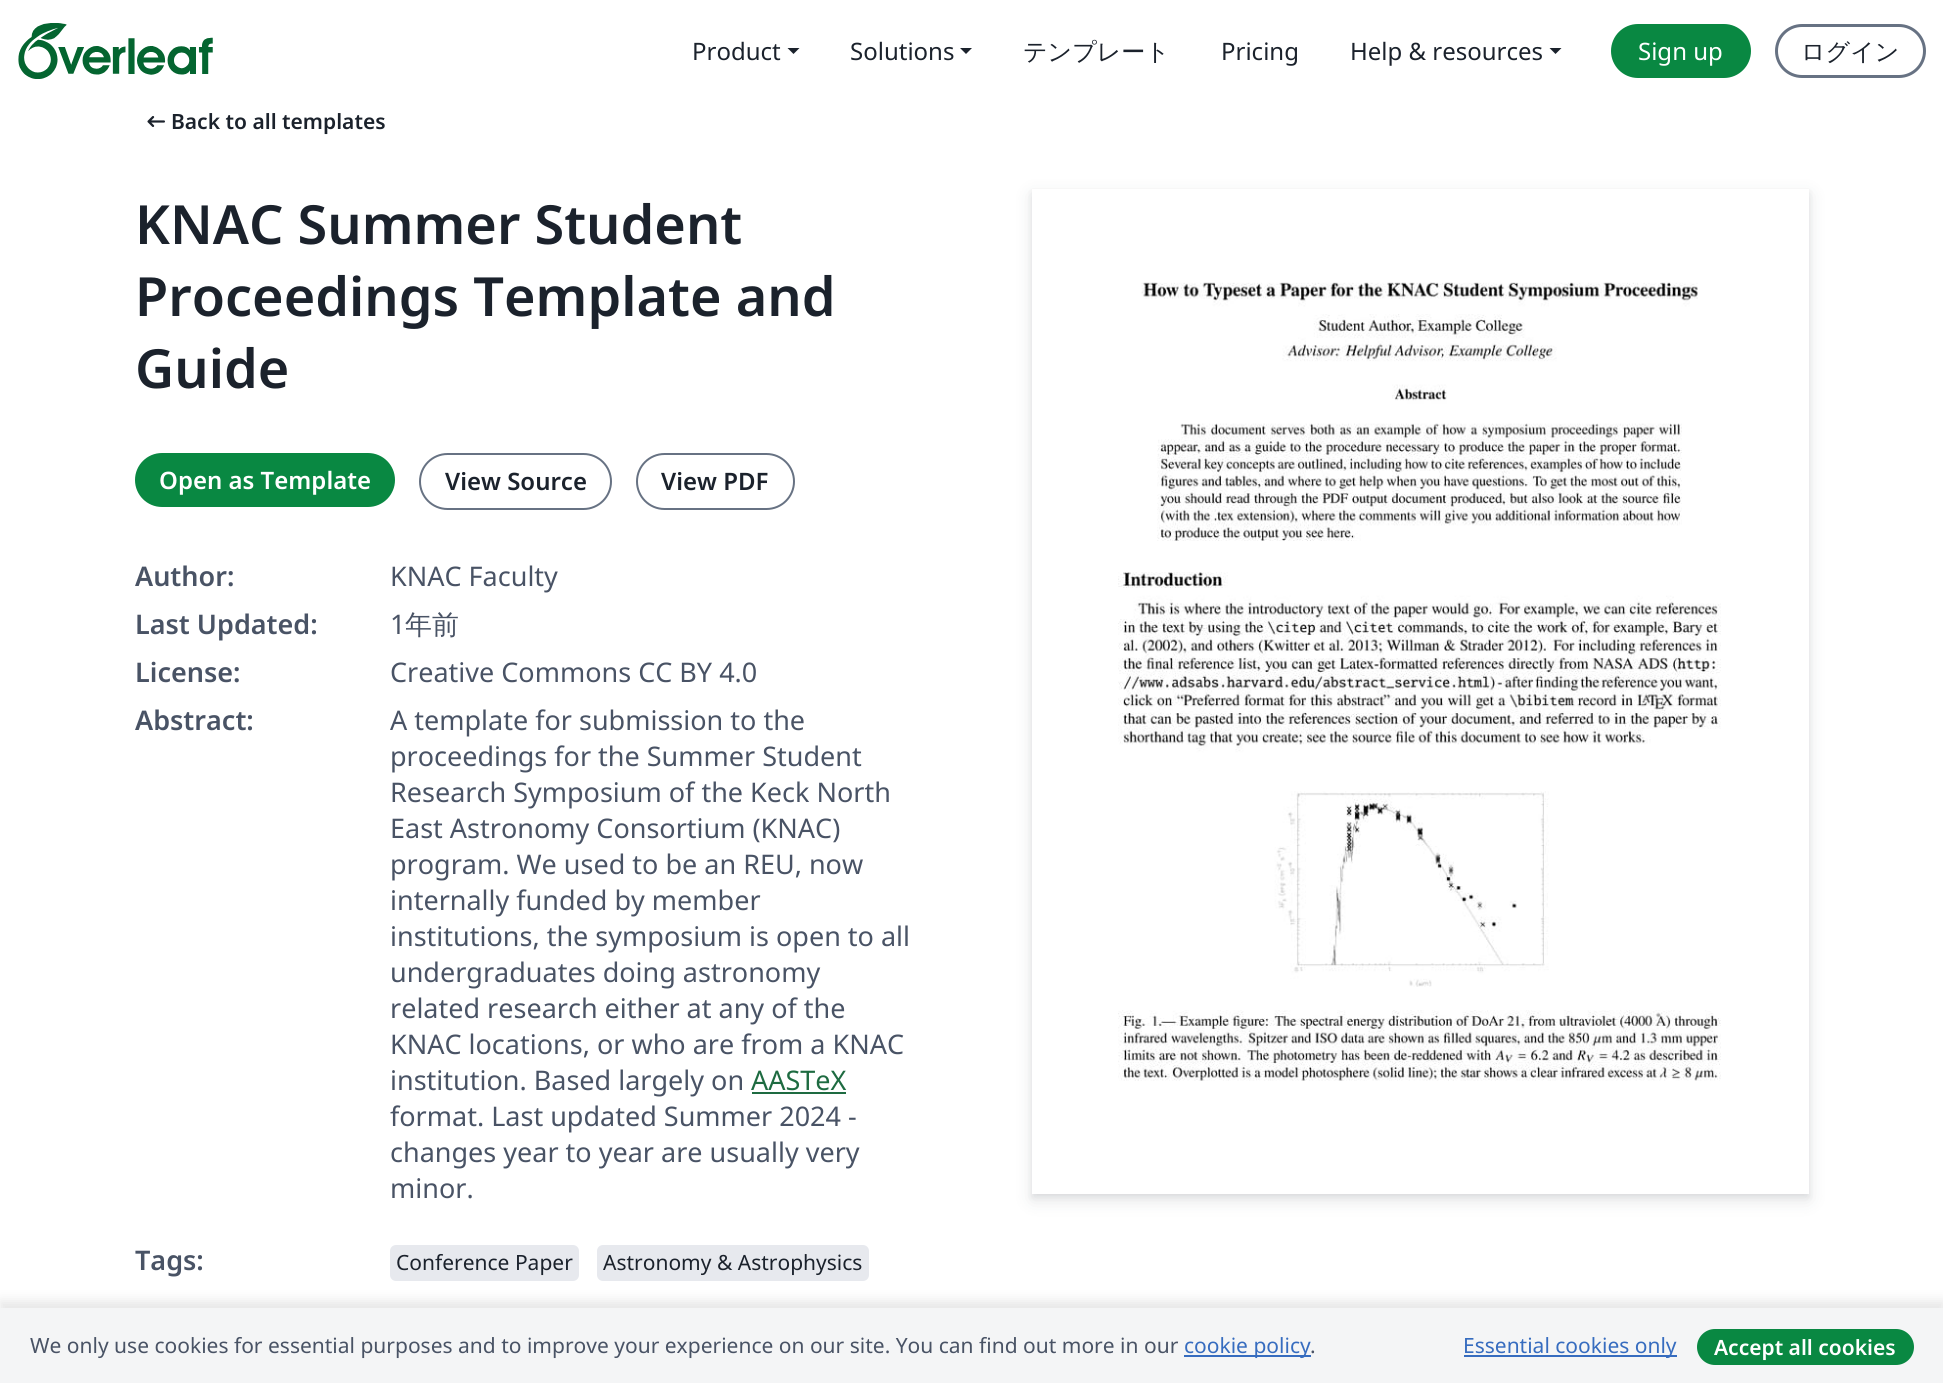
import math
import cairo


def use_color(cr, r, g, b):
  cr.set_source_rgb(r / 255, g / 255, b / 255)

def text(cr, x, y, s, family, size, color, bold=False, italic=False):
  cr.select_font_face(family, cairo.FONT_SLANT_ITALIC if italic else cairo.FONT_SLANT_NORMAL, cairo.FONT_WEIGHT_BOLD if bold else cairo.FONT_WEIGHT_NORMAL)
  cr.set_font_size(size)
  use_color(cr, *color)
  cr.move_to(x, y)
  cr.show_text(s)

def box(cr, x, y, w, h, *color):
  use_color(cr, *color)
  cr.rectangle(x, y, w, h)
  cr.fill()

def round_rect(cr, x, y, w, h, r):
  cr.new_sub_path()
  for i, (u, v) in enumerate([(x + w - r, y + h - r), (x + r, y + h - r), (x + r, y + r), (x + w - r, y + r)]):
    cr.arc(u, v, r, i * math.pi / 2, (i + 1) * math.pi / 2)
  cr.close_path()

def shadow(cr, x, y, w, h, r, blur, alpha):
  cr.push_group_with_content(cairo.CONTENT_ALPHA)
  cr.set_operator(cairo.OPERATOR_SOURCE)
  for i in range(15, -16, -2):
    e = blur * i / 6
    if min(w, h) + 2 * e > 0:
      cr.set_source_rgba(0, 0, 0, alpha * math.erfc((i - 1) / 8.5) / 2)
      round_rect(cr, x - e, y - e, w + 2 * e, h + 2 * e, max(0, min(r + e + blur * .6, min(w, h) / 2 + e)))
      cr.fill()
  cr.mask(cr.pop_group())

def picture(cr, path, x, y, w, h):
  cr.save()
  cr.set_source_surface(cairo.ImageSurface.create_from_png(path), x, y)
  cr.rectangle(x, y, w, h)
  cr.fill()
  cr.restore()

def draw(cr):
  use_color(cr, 255, 255, 255)
  cr.paint()
  picture(cr, "img_01.png", 18, 23, 195, 56)
  use_color(cr, 27, 34, 44)
  cr.new_path()
  cr.move_to(787.5, 48)
  cr.line_to(799.5, 48)
  cr.line_to(793.5, 54)
  cr.close_path()
  cr.fill()
  cr.new_path()
  cr.move_to(960, 48)
  cr.line_to(972, 48)
  cr.line_to(966, 54)
  cr.close_path()
  cr.fill()
  cr.new_path()
  cr.move_to(1549.5, 48)
  cr.line_to(1561.5, 48)
  cr.line_to(1555.5, 54)
  cr.close_path()
  cr.fill()
  use_color(cr, 9, 136, 66)
  round_rect(cr, 1612.5, 25.5, 137, 51, 25.5)
  cr.fill_preserve()
  cr.set_line_width(3)
  cr.stroke()
  round_rect(cr, 1776.5, 25.5, 148, 51, 25.5)
  use_color(cr, 103, 114, 131)
  cr.stroke()
  picture(cr, "img_02.png", 147, 116, 18, 11)
  use_color(cr, 9, 136, 66)
  round_rect(cr, 135, 453, 260, 54, 27)
  cr.fill()
  round_rect(cr, 420, 454, 191, 55, 27.5)
  use_color(cr, 103, 114, 131)
  cr.set_line_width(2)
  cr.stroke()
  round_rect(cr, 637, 454, 157, 55, 27.5)
  cr.stroke()
  box(cr, 752, 1092, 94, 2, 30, 107, 65)
  use_color(cr, 231, 233, 238)
  round_rect(cr, 390, 1245, 189, 36, 6)
  cr.fill()
  round_rect(cr, 597, 1245, 272, 36, 6)
  cr.fill()
  cr.save()
  cr.set_fill_rule(cairo.FILL_RULE_EVEN_ODD)
  cr.new_path()
  cr.move_to(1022, 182)
  cr.line_to(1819, 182)
  cr.line_to(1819, 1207)
  cr.line_to(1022, 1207)
  cr.close_path()
  cr.move_to(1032, 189)
  cr.line_to(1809, 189)
  cr.line_to(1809, 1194)
  cr.line_to(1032, 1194)
  cr.close_path()
  cr.clip()
  use_color(cr, 30, 37, 48)
  shadow(cr, 1032, 192, 777, 1005, 0, 3, 0.08)
  cr.restore()
  cr.save()
  cr.set_fill_rule(cairo.FILL_RULE_EVEN_ODD)
  cr.new_path()
  cr.move_to(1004, 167)
  cr.line_to(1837, 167)
  cr.line_to(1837, 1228)
  cr.line_to(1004, 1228)
  cr.close_path()
  cr.move_to(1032, 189)
  cr.line_to(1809, 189)
  cr.line_to(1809, 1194)
  cr.line_to(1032, 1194)
  cr.close_path()
  cr.clip()
  use_color(cr, 30, 37, 48)
  shadow(cr, 1032, 195, 777, 1005, 0, 9, 0.12)
  cr.restore()
  picture(cr, "img_03.png", 1118, 282, 603, 799)
  use_color(cr, 0, 0, 0)
  shadow(cr, 0, 1301, 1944, 75, 0, 6, 0.1)
  box(cr, 0, 1308, 1943, 75, 244, 245, 246)
  box(cr, 1184, 1355, 127, 2, 54, 108, 191)
  box(cr, 1464, 1355, 213, 2, 54, 108, 191)
  use_color(cr, 9, 136, 66)
  round_rect(cr, 1697, 1329, 217, 36, 18)
  cr.fill()
  text(cr, 692, 60, "Product", "Noto Sans", 24, (27, 34, 44))
  text(cr, 850, 60, "Solutions", "Noto Sans", 24, (27, 34, 44))
  text(cr, 1023, 60, "テンプレート", "WenQuanYi Zen Hei Medium", 24, (27, 34, 44))
  text(cr, 1221, 60, "Pricing", "Noto Sans", 24, (27, 34, 44))
  text(cr, 1350, 60, "Help & resources", "Noto Sans", 24, (27, 34, 44))
  text(cr, 1638, 60, "Sign up", "Noto Sans", 24, (255, 255, 255))
  text(cr, 1801, 60, "ログイン", "WenQuanYi Zen Hei Medium", 24, (27, 34, 44))
  text(cr, 171, 129, "Back to all templates", "Noto Sans SemiBold", 21, (27, 34, 44))
  text(cr, 135, 244, "KNAC Summer Student", "Noto Sans SemiBold", 54, (27, 34, 44))
  text(cr, 135, 316, "Proceedings Template and", "Noto Sans SemiBold", 54, (27, 34, 44))
  text(cr, 135, 388, "Guide", "Noto Sans SemiBold", 54, (27, 34, 44))
  text(cr, 159, 489, "Open as Template", "Noto Sans SemiBold", 24, (255, 255, 255))
  text(cr, 445, 490, "View Source", "Noto Sans SemiBold", 24, (27, 34, 44))
  text(cr, 661, 490, "View PDF", "Noto Sans SemiBold", 24, (27, 34, 44))
  text(cr, 135, 586, "Author:", "Noto Sans SemiBold", 27, (73, 83, 101))
  text(cr, 390, 586, "KNAC Faculty", "Noto Sans", 27, (73, 83, 101))
  text(cr, 135, 634, "Last Updated:", "Noto Sans SemiBold", 27, (73, 83, 101))
  text(cr, 390, 634, "1", "Noto Sans", 27, (73, 83, 101))
  text(cr, 405, 634, "年前", "WenQuanYi Zen Hei Medium", 27, (73, 83, 101))
  text(cr, 135, 682, "License:", "Noto Sans SemiBold", 27, (73, 83, 101))
  text(cr, 390, 682, "Creative Commons CC BY 4.0", "Noto Sans", 27, (73, 83, 101))
  text(cr, 135, 730, "Abstract:", "Noto Sans SemiBold", 27, (73, 83, 101))
  text(cr, 390, 730, "A template for submission to the", "Noto Sans", 27, (73, 83, 101))
  text(cr, 390, 766, "proceedings for the Summer Student", "Noto Sans", 27, (73, 83, 101))
  text(cr, 390, 802, "Research Symposium of the Keck North", "Noto Sans", 27, (73, 83, 101))
  text(cr, 390, 838, "East Astronomy Consortium (KNAC)", "Noto Sans", 27, (73, 83, 101))
  text(cr, 390, 874, "program. We used to be an REU, now", "Noto Sans", 27, (73, 83, 101))
  text(cr, 390, 910, "internally funded by member", "Noto Sans", 27, (73, 83, 101))
  text(cr, 390, 946, "institutions, the symposium is open to all", "Noto Sans", 27, (73, 83, 101))
  text(cr, 390, 982, "undergraduates doing astronomy", "Noto Sans", 27, (73, 83, 101))
  text(cr, 390, 1018, "related research either at any of the", "Noto Sans", 27, (73, 83, 101))
  text(cr, 390, 1054, "KNAC locations, or who are from a KNAC", "Noto Sans", 27, (73, 83, 101))
  text(cr, 390, 1090, "institution. Based largely on", "Noto Sans", 27, (73, 83, 101))
  text(cr, 751, 1090, "AASTeX", "Noto Sans", 27, (30, 107, 65))
  text(cr, 390, 1126, "format. Last updated Summer 2024 -", "Noto Sans", 27, (73, 83, 101))
  text(cr, 390, 1162, "changes year to year are usually very", "Noto Sans", 27, (73, 83, 101))
  text(cr, 390, 1198, "minor.", "Noto Sans", 27, (73, 83, 101))
  text(cr, 135, 1270, "Tags:", "Noto Sans SemiBold", 27, (73, 83, 101))
  text(cr, 396, 1270, "Conference Paper", "Noto Sans", 21, (27, 34, 44))
  text(cr, 603, 1270, "Astronomy & Astrophysics", "Noto Sans", 21, (27, 34, 44))
  text(cr, 30, 1353, "We only use cookies for essential purposes and to improve your experience on our site. You can find out more in our", "Noto Sans", 21, (73, 83, 101))
  text(cr, 1184, 1353, "cookie policy", "Noto Sans", 21, (54, 108, 191))
  text(cr, 1310, 1353, ".", "Noto Sans", 21, (73, 83, 101))
  text(cr, 1463, 1353, "Essential cookies only", "Noto Sans", 21, (54, 108, 191))
  text(cr, 1714, 1355, "Accept all cookies", "Noto Sans SemiBold", 21, (255, 255, 255))


surface = cairo.ImageSurface(cairo.FORMAT_RGB24, 1943, 1383)
cr = cairo.Context(surface)
options = cairo.FontOptions()
options.set_hint_metrics(cairo.HINT_METRICS_OFF)
options.set_hint_style(cairo.HINT_STYLE_NONE)
cr.set_font_options(options)
cr.set_miter_limit(4)
draw(cr)
surface.write_to_png("out.png")
